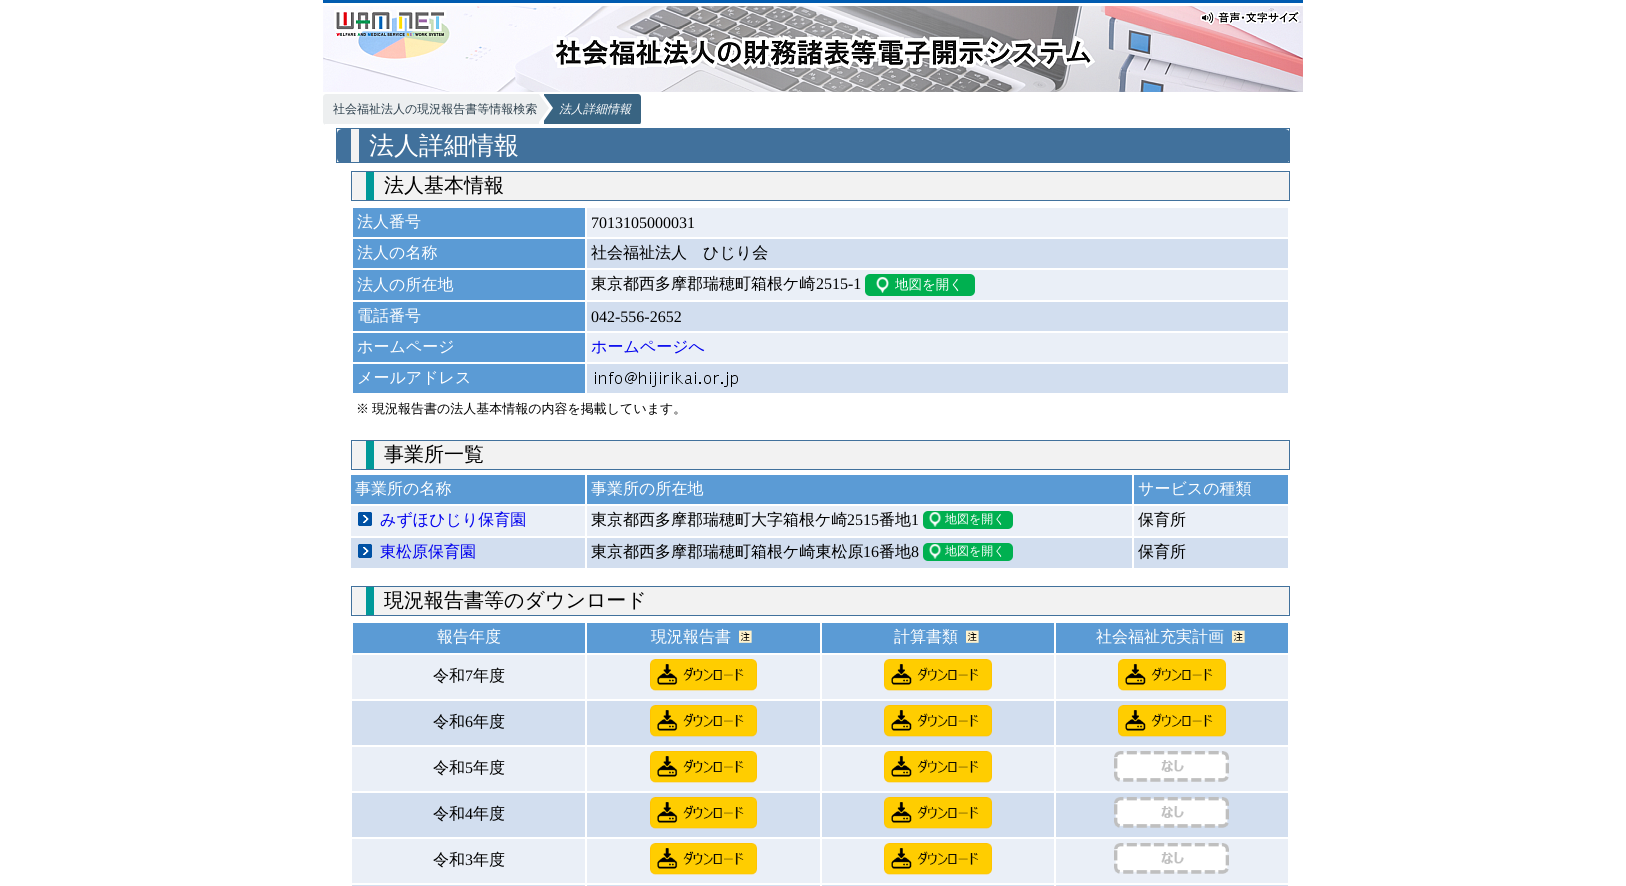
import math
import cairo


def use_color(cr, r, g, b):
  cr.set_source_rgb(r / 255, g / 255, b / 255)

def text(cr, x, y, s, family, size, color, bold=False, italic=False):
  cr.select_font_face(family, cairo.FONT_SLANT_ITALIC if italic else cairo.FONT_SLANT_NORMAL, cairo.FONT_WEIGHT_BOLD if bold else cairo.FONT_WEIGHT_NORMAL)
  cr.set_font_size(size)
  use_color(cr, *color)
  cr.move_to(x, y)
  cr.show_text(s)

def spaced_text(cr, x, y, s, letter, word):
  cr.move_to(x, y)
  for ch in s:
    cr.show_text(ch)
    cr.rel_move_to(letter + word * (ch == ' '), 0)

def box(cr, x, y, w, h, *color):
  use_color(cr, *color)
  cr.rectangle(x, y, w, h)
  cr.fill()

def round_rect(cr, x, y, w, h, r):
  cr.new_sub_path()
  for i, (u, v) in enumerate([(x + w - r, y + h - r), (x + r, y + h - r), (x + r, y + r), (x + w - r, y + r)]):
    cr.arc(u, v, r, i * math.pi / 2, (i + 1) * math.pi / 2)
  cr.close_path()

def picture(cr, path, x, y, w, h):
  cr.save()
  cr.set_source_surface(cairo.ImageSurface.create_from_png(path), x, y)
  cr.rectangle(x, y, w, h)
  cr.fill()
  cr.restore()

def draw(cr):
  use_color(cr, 255, 255, 255)
  cr.paint()
  box(cr, 323, 0, 980, 3, 0, 91, 176)
  picture(cr, "img_01.png", 323, 6, 980, 86)
  use_color(cr, 237, 239, 240)
  cr.new_path()
  cr.move_to(326, 94)
  cr.line_to(539, 94)
  cr.line_to(539, 125)
  cr.line_to(326, 125)
  cr.curve_to(324.5, 125, 323, 123.5, 323, 122)
  cr.line_to(323, 97)
  cr.curve_to(323, 95.5, 324.5, 94, 326, 94)
  cr.close_path()
  cr.fill()
  use_color(cr, 57, 100, 130)
  cr.new_path()
  cr.move_to(544, 94)
  cr.line_to(638, 94)
  cr.curve_to(639.5, 94, 641, 95.5, 641, 97)
  cr.line_to(641, 122)
  cr.curve_to(641, 123.5, 639.5, 125, 638, 125)
  cr.line_to(544, 125)
  cr.close_path()
  cr.fill()
  use_color(cr, 255, 255, 255)
  cr.new_path()
  cr.move_to(543, 122)
  cr.line_to(543, 94)
  cr.line_to(553, 108)
  cr.close_path()
  cr.fill()
  use_color(cr, 237, 239, 240)
  cr.new_path()
  cr.move_to(539, 122)
  cr.line_to(539, 94)
  cr.line_to(549, 108)
  cr.close_path()
  cr.fill()
  box(cr, 325, 124, 316, 1, 255, 255, 255)
  use_color(cr, 65, 113, 156)
  round_rect(cr, 337, 129, 953, 34, 5)
  cr.fill()
  box(cr, 336, 128, 954, 1, 65, 113, 156)
  box(cr, 1289, 128, 1, 35, 65, 113, 156)
  box(cr, 336, 162, 954, 1, 65, 113, 156)
  box(cr, 336, 128, 1, 35, 65, 113, 156)
  box(cr, 351, 129, 8, 33, 242, 242, 242)
  round_rect(cr, 352, 172, 938, 29, 5)
  cr.fill()
  box(cr, 351, 171, 939, 1, 65, 113, 156)
  box(cr, 1289, 171, 1, 30, 65, 113, 156)
  box(cr, 351, 200, 939, 1, 65, 113, 156)
  box(cr, 351, 171, 1, 30, 65, 113, 156)
  box(cr, 366, 172, 8, 28, 0, 153, 153)
  box(cr, 353, 208, 232, 29, 91, 155, 213)
  box(cr, 587, 208, 701, 29, 234, 239, 247)
  box(cr, 353, 239, 232, 29, 91, 155, 213)
  box(cr, 587, 239, 701, 29, 210, 222, 239)
  box(cr, 353, 270, 232, 30, 91, 155, 213)
  box(cr, 587, 270, 701, 30, 234, 239, 247)
  use_color(cr, 0, 176, 80)
  round_rect(cr, 865, 274, 110, 22, 5)
  cr.fill()
  picture(cr, "img_02.png", 876, 277, 13, 16)
  box(cr, 353, 302, 232, 29, 91, 155, 213)
  box(cr, 587, 302, 701, 29, 210, 222, 239)
  box(cr, 353, 333, 232, 29, 91, 155, 213)
  box(cr, 587, 333, 701, 29, 234, 239, 247)
  box(cr, 353, 364, 232, 29, 91, 155, 213)
  box(cr, 587, 364, 701, 29, 210, 222, 239)
  picture(cr, "img_03.png", 595, 372, 143, 15)
  use_color(cr, 242, 242, 242)
  round_rect(cr, 352, 441, 938, 29, 5)
  cr.fill()
  box(cr, 351, 440, 939, 1, 65, 113, 156)
  box(cr, 1289, 440, 1, 30, 65, 113, 156)
  box(cr, 351, 469, 939, 1, 65, 113, 156)
  box(cr, 351, 440, 1, 30, 65, 113, 156)
  box(cr, 366, 441, 8, 28, 0, 153, 153)
  box(cr, 351, 475, 937, 29, 91, 155, 213)
  box(cr, 351, 506, 937, 30, 234, 239, 247)
  picture(cr, "img_04.png", 358, 512, 14, 14)
  use_color(cr, 0, 176, 80)
  round_rect(cr, 923, 511, 90, 18, 5)
  cr.fill()
  picture(cr, "img_05.png", 929, 512, 13, 15)
  box(cr, 351, 538, 937, 30, 210, 222, 239)
  picture(cr, "img_04.png", 358, 544, 14, 14)
  box(cr, 585, 474, 2, 95, 255, 255, 255)
  use_color(cr, 0, 176, 80)
  round_rect(cr, 923, 543, 90, 18, 5)
  cr.fill()
  picture(cr, "img_05.png", 929, 544, 13, 15)
  box(cr, 1132, 474, 2, 95, 255, 255, 255)
  use_color(cr, 242, 242, 242)
  round_rect(cr, 352, 586, 938, 29, 5)
  cr.fill()
  box(cr, 351, 586, 939, 1, 65, 113, 156)
  box(cr, 1289, 586, 1, 30, 65, 113, 156)
  box(cr, 351, 615, 939, 1, 65, 113, 156)
  box(cr, 351, 586, 1, 30, 65, 113, 156)
  box(cr, 366, 587, 8, 28, 0, 153, 153)
  box(cr, 353, 623, 232, 30, 91, 155, 213)
  box(cr, 587, 623, 233, 30, 91, 155, 213)
  picture(cr, "img_06.png", 739, 630, 13, 13)
  box(cr, 822, 623, 232, 30, 91, 155, 213)
  picture(cr, "img_06.png", 966, 630, 13, 13)
  box(cr, 1056, 623, 232, 30, 91, 155, 213)
  picture(cr, "img_07.png", 1232, 630, 13, 13)
  box(cr, 352, 885, 937, 1, 210, 222, 239)
  box(cr, 352, 655, 936, 44, 234, 239, 247)
  box(cr, 352, 701, 936, 44, 210, 222, 239)
  box(cr, 352, 747, 936, 44, 234, 239, 247)
  box(cr, 352, 793, 936, 44, 210, 222, 239)
  box(cr, 352, 839, 936, 44, 234, 239, 247)
  box(cr, 585, 653, 2, 233, 255, 255, 255)
  box(cr, 820, 653, 2, 233, 255, 255, 255)
  box(cr, 1054, 653, 2, 233, 255, 255, 255)
  box(cr, 1288, 883, 1, 3, 255, 255, 255)
  picture(cr, "img_08.png", 650, 659, 107, 32)
  picture(cr, "img_09.png", 884, 659, 108, 32)
  picture(cr, "img_09.png", 1118, 659, 108, 32)
  picture(cr, "img_10.png", 650, 705, 107, 32)
  picture(cr, "img_11.png", 884, 705, 108, 32)
  picture(cr, "img_11.png", 1118, 705, 108, 32)
  picture(cr, "img_08.png", 650, 751, 107, 32)
  picture(cr, "img_09.png", 884, 751, 108, 32)
  picture(cr, "img_12.png", 1114, 751, 115, 31)
  picture(cr, "img_10.png", 650, 797, 107, 32)
  picture(cr, "img_11.png", 884, 797, 108, 32)
  picture(cr, "img_13.png", 1114, 797, 115, 31)
  picture(cr, "img_08.png", 650, 843, 107, 32)
  picture(cr, "img_09.png", 884, 843, 108, 32)
  picture(cr, "img_12.png", 1114, 843, 115, 31)
  text(cr, 333, 113, "社会福祉法人の現況報告書等情報検索", "WenQuanYi Zen Hei Medium", 12, (44, 63, 76))
  text(cr, 559, 113, "法人詳細情報", "WenQuanYi Zen Hei Medium", 12, (255, 255, 255), italic=True)
  text(cr, 369, 154, "法人詳細情報", "WenQuanYi Zen Hei Medium", 25, (255, 255, 255))
  text(cr, 384, 192, "法人基本情報", "WenQuanYi Zen Hei Medium", 20, (0, 0, 0))
  text(cr, 357, 227, "法人番号", "WenQuanYi Zen Hei Medium", 16, (255, 255, 255))
  text(cr, 591, 228, "7013105000031", "Liberation Serif", 16, (0, 0, 0))
  text(cr, 357, 258, "法人の名称", "WenQuanYi Zen Hei Medium", 16, (255, 255, 255))
  text(cr, 591, 258, "社会福祉法人　ひじり会", "WenQuanYi Zen Hei Medium", 16, (0, 0, 0))
  text(cr, 357, 290, "法人の所在地", "WenQuanYi Zen Hei Medium", 16, (255, 255, 255))
  text(cr, 591, 289, "東京都西多摩郡瑞穂町箱根ケ崎", "WenQuanYi Zen Hei Medium", 16, (0, 0, 0))
  text(cr, 816, 289, "2515-1", "Liberation Serif", 16, (0, 0, 0))
  text(cr, 895, 289, "地図を開く", "WenQuanYi Zen Hei Medium", 13.5, (255, 255, 255))
  text(cr, 357, 321, "電話番号", "WenQuanYi Zen Hei Medium", 16, (255, 255, 255))
  text(cr, 591, 322, "042-556-2652", "Liberation Serif", 16, (0, 0, 0))
  text(cr, 357, 352, "ホームページ", "WenQuanYi Zen Hei Medium", 16, (255, 255, 255))
  text(cr, 591, 352, "ホームページへ", "WenQuanYi Zen Hei Medium", 16, (0, 0, 238))
  text(cr, 357, 383, "メールアドレス", "WenQuanYi Zen Hei Medium", 16, (255, 255, 255))
  cr.set_font_size(13)
  use_color(cr, 0, 0, 0)
  spaced_text(cr, 356, 413, "※ 現況報告書の法人基本情報の内容を掲載しています。", 0, -1)
  text(cr, 384, 461, "事業所一覧", "WenQuanYi Zen Hei Medium", 20, (0, 0, 0))
  text(cr, 355, 494, "事業所の名称", "WenQuanYi Zen Hei Medium", 16, (255, 255, 255))
  text(cr, 591, 494, "事業所の所在地", "WenQuanYi Zen Hei Medium", 16, (255, 255, 255))
  text(cr, 1138, 494, "サービスの種類", "WenQuanYi Zen Hei Medium", 16, (255, 255, 255))
  text(cr, 380, 525, "みずほひじり保育園", "WenQuanYi Zen Hei Medium", 16, (0, 0, 238))
  text(cr, 591, 525, "東京都西多摩郡瑞穂町大字箱根ケ崎", "WenQuanYi Zen Hei Medium", 16, (0, 0, 0))
  text(cr, 847, 525, "2515", "Liberation Serif", 16, (0, 0, 0))
  text(cr, 879, 525, "番地", "WenQuanYi Zen Hei Medium", 16, (0, 0, 0))
  text(cr, 911, 525, "1", "Liberation Serif", 16, (0, 0, 0))
  text(cr, 945, 523, "地図を開く", "WenQuanYi Zen Hei Medium", 12, (255, 255, 255))
  text(cr, 1138, 525, "保育所", "WenQuanYi Zen Hei Medium", 16, (0, 0, 0))
  text(cr, 380, 557, "東松原保育園", "WenQuanYi Zen Hei Medium", 16, (0, 0, 238))
  text(cr, 591, 557, "東京都西多摩郡瑞穂町箱根ケ崎東松原", "WenQuanYi Zen Hei Medium", 16, (0, 0, 0))
  text(cr, 863, 557, "16", "Liberation Serif", 16, (0, 0, 0))
  text(cr, 879, 557, "番地", "WenQuanYi Zen Hei Medium", 16, (0, 0, 0))
  text(cr, 911, 557, "8", "Liberation Serif", 16, (0, 0, 0))
  text(cr, 945, 555, "地図を開く", "WenQuanYi Zen Hei Medium", 12, (255, 255, 255))
  text(cr, 1138, 557, "保育所", "WenQuanYi Zen Hei Medium", 16, (0, 0, 0))
  text(cr, 384, 607, "現況報告書等のダウンロード", "WenQuanYi Zen Hei Medium", 20, (0, 0, 0))
  text(cr, 437, 642, "報告年度", "WenQuanYi Zen Hei Medium", 16, (255, 255, 255))
  text(cr, 651, 642, "現況報告書", "WenQuanYi Zen Hei Medium", 16, (255, 255, 255))
  text(cr, 894, 642, "計算書類", "WenQuanYi Zen Hei Medium", 16, (255, 255, 255))
  text(cr, 1096, 642, "社会福祉充実計画", "WenQuanYi Zen Hei Medium", 16, (255, 255, 255))
  text(cr, 433, 681, "令和", "WenQuanYi Zen Hei Medium", 16, (0, 0, 0))
  text(cr, 465, 681, "7", "Liberation Serif", 16, (0, 0, 0))
  text(cr, 473, 681, "年度", "WenQuanYi Zen Hei Medium", 16, (0, 0, 0))
  text(cr, 433, 727, "令和", "WenQuanYi Zen Hei Medium", 16, (0, 0, 0))
  text(cr, 465, 727, "6", "Liberation Serif", 16, (0, 0, 0))
  text(cr, 473, 727, "年度", "WenQuanYi Zen Hei Medium", 16, (0, 0, 0))
  text(cr, 433, 773, "令和", "WenQuanYi Zen Hei Medium", 16, (0, 0, 0))
  text(cr, 465, 773, "5", "Liberation Serif", 16, (0, 0, 0))
  text(cr, 473, 773, "年度", "WenQuanYi Zen Hei Medium", 16, (0, 0, 0))
  text(cr, 433, 819, "令和", "WenQuanYi Zen Hei Medium", 16, (0, 0, 0))
  text(cr, 465, 819, "4", "Liberation Serif", 16, (0, 0, 0))
  text(cr, 473, 819, "年度", "WenQuanYi Zen Hei Medium", 16, (0, 0, 0))
  text(cr, 433, 865, "令和", "WenQuanYi Zen Hei Medium", 16, (0, 0, 0))
  text(cr, 465, 865, "3", "Liberation Serif", 16, (0, 0, 0))
  text(cr, 473, 865, "年度", "WenQuanYi Zen Hei Medium", 16, (0, 0, 0))


surface = cairo.ImageSurface(cairo.FORMAT_RGB24, 1626, 886)
cr = cairo.Context(surface)
options = cairo.FontOptions()
options.set_hint_metrics(cairo.HINT_METRICS_OFF)
options.set_hint_style(cairo.HINT_STYLE_NONE)
cr.set_font_options(options)
cr.set_miter_limit(4)
draw(cr)
surface.write_to_png("out.png")
